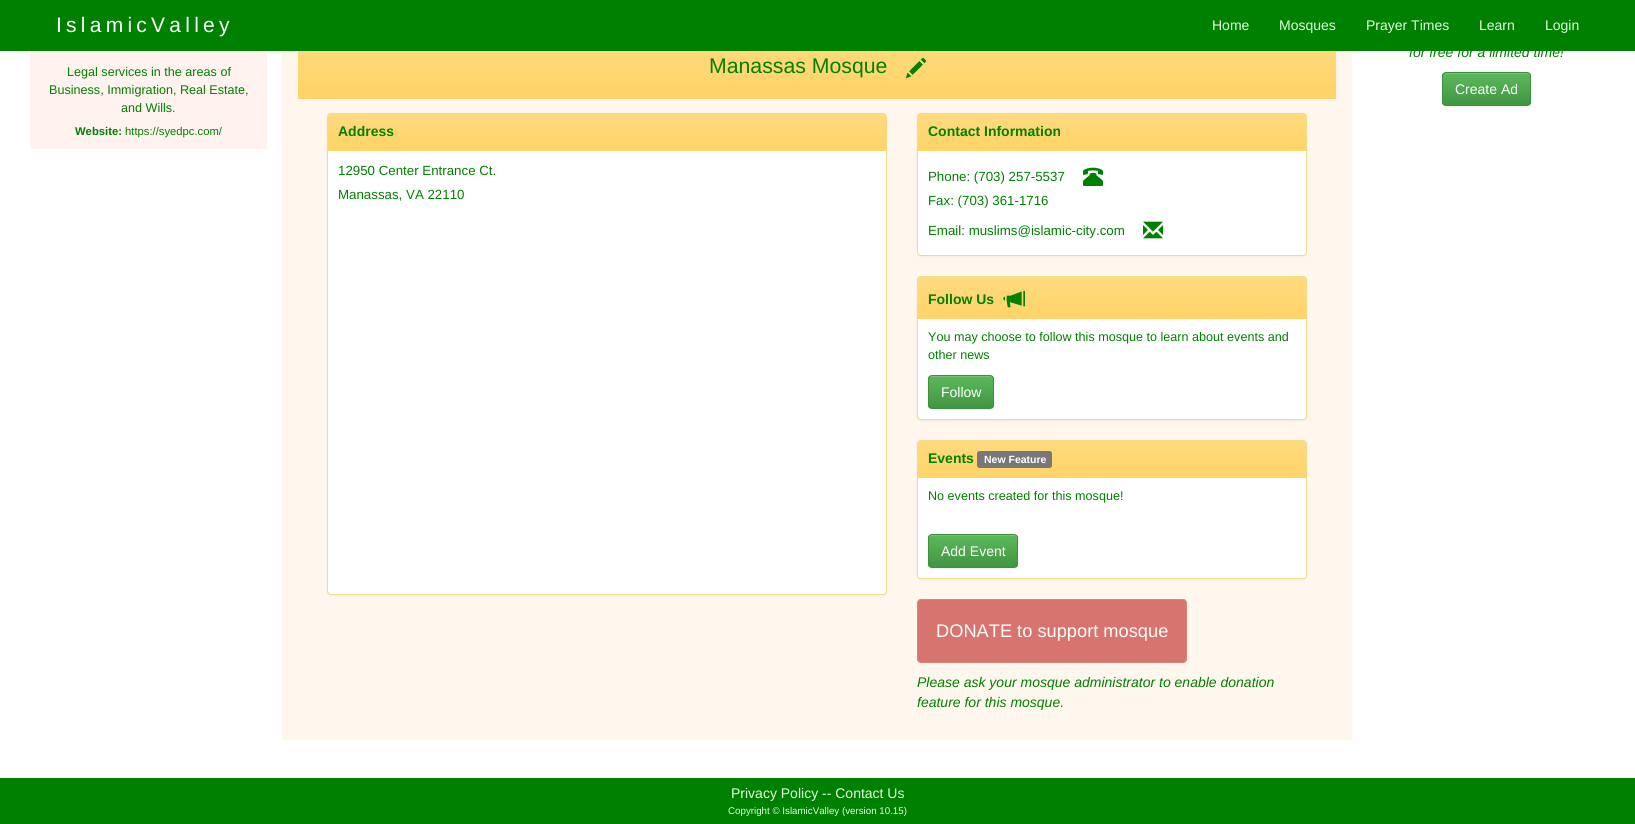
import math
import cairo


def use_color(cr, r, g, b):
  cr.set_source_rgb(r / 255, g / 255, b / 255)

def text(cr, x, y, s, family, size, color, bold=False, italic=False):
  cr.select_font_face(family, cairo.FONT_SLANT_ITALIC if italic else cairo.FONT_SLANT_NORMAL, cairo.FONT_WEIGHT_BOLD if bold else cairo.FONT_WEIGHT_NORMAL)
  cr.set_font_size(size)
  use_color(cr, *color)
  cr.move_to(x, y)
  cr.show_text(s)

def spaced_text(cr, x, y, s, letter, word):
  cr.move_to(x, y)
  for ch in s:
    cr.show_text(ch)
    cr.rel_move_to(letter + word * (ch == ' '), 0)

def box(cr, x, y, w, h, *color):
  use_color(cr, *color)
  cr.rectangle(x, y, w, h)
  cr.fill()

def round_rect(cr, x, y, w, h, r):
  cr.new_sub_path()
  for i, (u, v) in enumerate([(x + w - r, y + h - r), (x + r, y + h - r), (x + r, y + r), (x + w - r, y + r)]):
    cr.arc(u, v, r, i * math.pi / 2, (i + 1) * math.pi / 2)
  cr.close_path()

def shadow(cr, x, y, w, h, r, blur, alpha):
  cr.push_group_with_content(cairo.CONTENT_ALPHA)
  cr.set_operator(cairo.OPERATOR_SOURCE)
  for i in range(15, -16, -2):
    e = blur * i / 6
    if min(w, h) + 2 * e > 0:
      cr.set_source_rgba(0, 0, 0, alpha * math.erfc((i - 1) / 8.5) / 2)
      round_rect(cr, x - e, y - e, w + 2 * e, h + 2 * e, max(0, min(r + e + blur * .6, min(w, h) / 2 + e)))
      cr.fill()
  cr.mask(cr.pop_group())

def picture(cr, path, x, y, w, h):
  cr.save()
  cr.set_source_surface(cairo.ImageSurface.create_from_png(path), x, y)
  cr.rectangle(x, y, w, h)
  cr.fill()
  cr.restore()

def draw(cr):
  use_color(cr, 255, 255, 255)
  cr.paint()
  box(cr, 0, 0, 1635, 51, 0, 128, 0)
  box(cr, 30, 51, 237, 98, 255, 242, 239)
  box(cr, 282, 51, 1070, 689, 255, 246, 238)
  gradient = cairo.LinearGradient(817, 33, 817, 99)
  gradient.add_color_stop_rgba(0, 1, 0.855, 0.498, 1)
  gradient.add_color_stop_rgba(1, 1, 0.827, 0.4, 1)
  cr.set_source(gradient)
  cr.rectangle(298, 51, 1038, 48)
  cr.fill()
  picture(cr, "img_01.png", 905, 57, 22, 22)
  use_color(cr, 0, 0, 0)
  shadow(cr, 327, 114, 560, 482, 4, 1, 0.05)
  use_color(cr, 255, 255, 255)
  round_rect(cr, 327.5, 113.5, 559, 481, 3.5)
  cr.fill_preserve()
  use_color(cr, 240, 221, 136)
  cr.set_line_width(1)
  cr.stroke()
  gradient = cairo.LinearGradient(607, 114, 607, 151)
  gradient.add_color_stop_rgba(0, 1, 0.855, 0.498, 1)
  gradient.add_color_stop_rgba(1, 1, 0.827, 0.4, 1)
  cr.set_source(gradient)
  cr.rectangle(328, 114, 558, 37)
  cr.fill()
  use_color(cr, 0, 0, 0)
  shadow(cr, 917, 114, 390, 143, 4, 1, 0.05)
  use_color(cr, 255, 255, 255)
  round_rect(cr, 917.5, 113.5, 389, 142, 3.5)
  cr.fill_preserve()
  use_color(cr, 240, 221, 136)
  cr.stroke()
  gradient = cairo.LinearGradient(1112, 114, 1112, 151)
  gradient.add_color_stop_rgba(0, 1, 0.855, 0.498, 1)
  gradient.add_color_stop_rgba(1, 1, 0.827, 0.4, 1)
  cr.set_source(gradient)
  cr.rectangle(918, 114, 388, 37)
  cr.fill()
  picture(cr, "img_02.png", 1083, 167, 20, 19)
  picture(cr, "img_03.png", 1143, 221, 20, 18)
  use_color(cr, 0, 0, 0)
  shadow(cr, 917, 277, 390, 144, 4, 1, 0.05)
  use_color(cr, 255, 255, 255)
  round_rect(cr, 917.5, 276.5, 389, 143, 3.5)
  cr.fill_preserve()
  use_color(cr, 240, 221, 136)
  cr.stroke()
  gradient = cairo.LinearGradient(1112, 277, 1112, 319)
  gradient.add_color_stop_rgba(0, 1, 0.855, 0.498, 1)
  gradient.add_color_stop_rgba(1, 1, 0.827, 0.4, 1)
  cr.set_source(gradient)
  cr.rectangle(918, 277, 388, 42)
  cr.fill()
  picture(cr, "img_04.png", 1003, 290, 22, 18)
  use_color(cr, 0, 0, 0)
  shadow(cr, 928, 376, 66, 34, 4, 0.5, 0.07)
  cr.save()
  round_rect(cr, 928, 375, 66, 34, 4)
  cr.clip()
  gradient = cairo.LinearGradient(961, 376, 961, 408)
  gradient.add_color_stop_rgba(0, 0.361, 0.722, 0.361, 1)
  gradient.add_color_stop_rgba(1, 0.255, 0.588, 0.255, 1)
  cr.set_source(gradient)
  cr.rectangle(928, 376, 66, 32)
  cr.fill()
  cr.restore()
  use_color(cr, 116, 194, 116)
  cr.new_path()
  cr.move_to(932, 377)
  cr.line_to(990, 377)
  cr.curve_to(992, 377, 993, 378, 993, 380)
  cr.curve_to(993, 374, 985, 376, 980, 376)
  cr.line_to(942, 376)
  cr.curve_to(937, 376, 929, 374, 929, 380)
  cr.curve_to(929, 378, 930, 377, 932, 377)
  cr.close_path()
  cr.fill()
  round_rect(cr, 928.5, 375.5, 65, 33, 3.5)
  use_color(cr, 62, 143, 62)
  cr.stroke()
  use_color(cr, 0, 0, 0)
  shadow(cr, 917, 441, 390, 139, 4, 1, 0.05)
  use_color(cr, 255, 255, 255)
  round_rect(cr, 917.5, 440.5, 389, 138, 3.5)
  cr.fill_preserve()
  use_color(cr, 240, 221, 136)
  cr.stroke()
  gradient = cairo.LinearGradient(1112, 441, 1112, 478)
  gradient.add_color_stop_rgba(0, 1, 0.855, 0.498, 1)
  gradient.add_color_stop_rgba(1, 1, 0.827, 0.4, 1)
  cr.set_source(gradient)
  cr.rectangle(918, 441, 388, 37)
  cr.fill()
  use_color(cr, 119, 119, 119)
  round_rect(cr, 977, 451, 75, 17, 2.5)
  cr.fill()
  use_color(cr, 0, 0, 0)
  shadow(cr, 928, 535, 90, 34, 4, 0.5, 0.07)
  cr.save()
  round_rect(cr, 928, 534, 90, 34, 4)
  cr.clip()
  gradient = cairo.LinearGradient(973, 535, 973, 567)
  gradient.add_color_stop_rgba(0, 0.361, 0.722, 0.361, 1)
  gradient.add_color_stop_rgba(1, 0.255, 0.588, 0.255, 1)
  cr.set_source(gradient)
  cr.rectangle(928, 535, 90, 32)
  cr.fill()
  cr.restore()
  use_color(cr, 116, 194, 116)
  cr.new_path()
  cr.move_to(932, 536)
  cr.line_to(1014, 536)
  cr.curve_to(1016, 536, 1017, 537, 1017, 539)
  cr.curve_to(1017, 531, 1004, 535, 1000, 535)
  cr.line_to(946, 535)
  cr.curve_to(942, 535, 929, 531, 929, 539)
  cr.curve_to(929, 537, 930, 536, 932, 536)
  cr.close_path()
  cr.fill()
  round_rect(cr, 928.5, 534.5, 89, 33, 3.5)
  use_color(cr, 62, 143, 62)
  cr.stroke()
  use_color(cr, 215, 116, 111)
  round_rect(cr, 917.5, 599.5, 269, 63, 3.5)
  cr.fill_preserve()
  use_color(cr, 227, 127, 121)
  cr.stroke()
  use_color(cr, 0, 0, 0)
  shadow(cr, 1442, 73, 89, 34, 4, 0.5, 0.07)
  cr.save()
  round_rect(cr, 1442, 72, 89, 34, 4)
  cr.clip()
  gradient = cairo.LinearGradient(1487, 73, 1487, 105)
  gradient.add_color_stop_rgba(0, 0.361, 0.722, 0.361, 1)
  gradient.add_color_stop_rgba(1, 0.255, 0.588, 0.255, 1)
  cr.set_source(gradient)
  cr.rectangle(1442, 73, 89, 32)
  cr.fill()
  cr.restore()
  use_color(cr, 116, 194, 116)
  cr.new_path()
  cr.move_to(1446, 74)
  cr.line_to(1527, 74)
  cr.curve_to(1529, 74, 1530, 75, 1530, 77)
  cr.curve_to(1530, 69, 1517, 73, 1514, 73)
  cr.line_to(1460, 73)
  cr.curve_to(1456, 73, 1443, 69, 1443, 77)
  cr.curve_to(1443, 75, 1444, 74, 1446, 74)
  cr.close_path()
  cr.fill()
  round_rect(cr, 1442.5, 72.5, 88, 33, 3.5)
  use_color(cr, 62, 143, 62)
  cr.stroke()
  box(cr, 0, 778, 1635, 46, 0, 128, 0)
  cr.select_font_face("Liberation Sans")
  cr.set_font_size(21)
  use_color(cr, 255, 255, 255)
  spaced_text(cr, 56, 32, "IslamicValley", 4.25, 0)
  text(cr, 1212, 30, "Home", "Liberation Sans", 14, (221, 255, 221))
  text(cr, 1279, 30, "Mosques", "Liberation Sans", 14, (221, 255, 221))
  text(cr, 1366, 30, "Prayer Times", "Liberation Sans", 14, (221, 255, 221))
  text(cr, 1479, 30, "Learn", "Liberation Sans", 14, (221, 255, 221))
  text(cr, 1545, 30, "Login", "Liberation Sans", 14, (221, 255, 221))
  text(cr, 67, 76, "Legal services in the areas of", "Liberation Sans", 12.6, (0, 128, 0))
  text(cr, 49, 94, "Business, Immigration, Real Estate,", "Liberation Sans", 12.6, (0, 128, 0))
  text(cr, 121, 112, "and Wills.", "Liberation Sans", 12.6, (0, 128, 0))
  text(cr, 75, 135, "Website:", "Liberation Sans", 11.25, (0, 128, 0), bold=True)
  text(cr, 125, 135, "https://syedpc.com/", "Liberation Sans", 11.25, (0, 128, 0))
  text(cr, 709, 73, "Manassas Mosque", "Liberation Sans", 21.25, (0, 128, 0))
  text(cr, 338, 136, "Address", "Liberation Sans", 14, (0, 128, 0), bold=True)
  text(cr, 338, 175, "12950 Center Entrance Ct.", "Liberation Sans", 13.3, (0, 128, 0))
  text(cr, 338, 199, "Manassas, VA 22110", "Liberation Sans", 13.3, (0, 128, 0))
  text(cr, 928, 136, "Contact Information", "Liberation Sans", 14, (0, 128, 0), bold=True)
  text(cr, 928, 181, "Phone: (703) 257-5537", "Liberation Sans", 13.3, (0, 128, 0))
  text(cr, 928, 205, "Fax: (703) 361-1716", "Liberation Sans", 13.3, (0, 128, 0))
  text(cr, 928, 235, "Email: muslims@islamic-city.com", "Liberation Sans", 13.3, (0, 128, 0))
  text(cr, 928, 304, "Follow Us", "Liberation Sans", 14, (0, 128, 0), bold=True)
  text(cr, 928, 341, "You may choose to follow this mosque to learn about events and", "Liberation Sans", 12.6, (0, 128, 0))
  text(cr, 928, 359, "other news", "Liberation Sans", 12.6, (0, 128, 0))
  text(cr, 941, 397, "Follow", "Liberation Sans", 14, (255, 255, 255))
  text(cr, 928, 463, "Events", "Liberation Sans", 14, (0, 128, 0), bold=True)
  text(cr, 984, 463, "New Feature", "Liberation Sans", 10.5, (255, 255, 255), bold=True)
  text(cr, 928, 500, "No events created for this mosque!", "Liberation Sans", 12.6, (0, 128, 0))
  text(cr, 941, 556, "Add Event", "Liberation Sans", 14, (255, 255, 255))
  text(cr, 936, 637, "DONATE to support mosque", "Liberation Sans", 18.25, (255, 252, 249))
  text(cr, 917, 687, "Please ask your mosque administrator to enable donation", "Liberation Sans", 14, (0, 128, 0), italic=True)
  text(cr, 917, 707, "feature for this mosque.", "Liberation Sans", 14, (0, 128, 0), italic=True)
  text(cr, 1409, 57, "for free for a limited time!", "Liberation Sans", 14, (0, 128, 0), italic=True)
  text(cr, 1455, 94, "Create Ad", "Liberation Sans", 14, (255, 255, 255))
  text(cr, 731, 798, "Privacy Policy -- Contact Us", "Liberation Sans", 14, (221, 255, 221))
  text(cr, 728, 814, "Copyright © IslamicValley (version 10.15)", "Liberation Sans", 9.75, (221, 255, 221))


surface = cairo.ImageSurface(cairo.FORMAT_RGB24, 1635, 824)
cr = cairo.Context(surface)
options = cairo.FontOptions()
options.set_hint_metrics(cairo.HINT_METRICS_OFF)
options.set_hint_style(cairo.HINT_STYLE_NONE)
cr.set_font_options(options)
cr.set_miter_limit(4)
draw(cr)
surface.write_to_png("out.png")
